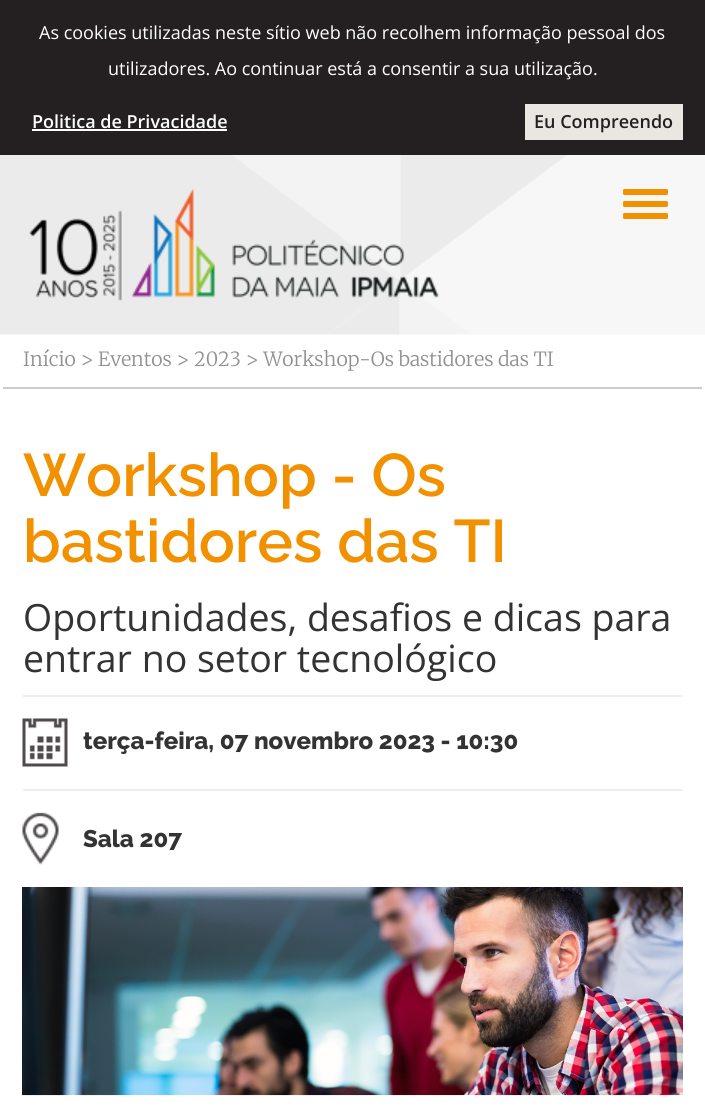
import math
import cairo


def use_color(cr, r, g, b):
  cr.set_source_rgb(r / 255, g / 255, b / 255)

def text(cr, x, y, s, family, size, color, bold=False, italic=False):
  cr.select_font_face(family, cairo.FONT_SLANT_ITALIC if italic else cairo.FONT_SLANT_NORMAL, cairo.FONT_WEIGHT_BOLD if bold else cairo.FONT_WEIGHT_NORMAL)
  cr.set_font_size(size)
  use_color(cr, *color)
  cr.move_to(x, y)
  cr.show_text(s)

def box(cr, x, y, w, h, *color):
  use_color(cr, *color)
  cr.rectangle(x, y, w, h)
  cr.fill()

def round_rect(cr, x, y, w, h, r):
  cr.new_sub_path()
  for i, (u, v) in enumerate([(x + w - r, y + h - r), (x + r, y + h - r), (x + r, y + r), (x + w - r, y + r)]):
    cr.arc(u, v, r, i * math.pi / 2, (i + 1) * math.pi / 2)
  cr.close_path()

def picture(cr, path, x, y, w, h):
  cr.save()
  cr.set_source_surface(cairo.ImageSurface.create_from_png(path), x, y)
  cr.rectangle(x, y, w, h)
  cr.fill()
  cr.restore()

def draw(cr):
  use_color(cr, 255, 255, 255)
  cr.paint()
  box(cr, 0, 0, 705, 155, 36, 32, 33)
  box(cr, 32, 129, 195, 2, 255, 255, 255)
  box(cr, 525, 104, 158, 36, 234, 231, 227)
  picture(cr, "img_01.png", 0, 155, 705, 180)
  picture(cr, "img_02.png", 29, 188, 410, 113)
  use_color(cr, 242, 145, 0)
  round_rect(cr, 623, 189, 45, 6, 1.5)
  cr.fill()
  round_rect(cr, 623, 201, 45, 6, 1.5)
  cr.fill()
  round_rect(cr, 623, 213, 45, 6, 1.5)
  cr.fill()
  box(cr, 3, 387, 699, 2, 204, 204, 204)
  picture(cr, "img_03.png", 22, 718, 46, 49)
  box(cr, 23, 695, 660, 2, 239, 238, 238)
  picture(cr, "img_04.png", 22, 812, 37, 53)
  box(cr, 23, 789, 660, 2, 239, 238, 238)
  picture(cr, "img_05.png", 22, 887, 661, 209)
  text(cr, 39, 39, "As cookies utilizadas neste sítio web não recolhem informação pessoal dos", "Open Sans", 18, (255, 255, 255))
  text(cr, 108, 75, "utilizadores. Ao continuar está a consentir a sua utilização.", "Open Sans", 18, (255, 255, 255))
  text(cr, 32, 128, "Politica de Privacidade", "Open Sans SemiBold", 18, (255, 255, 255))
  text(cr, 534, 128, "Eu Compreendo", "Open Sans SemiBold", 18, (36, 32, 33))
  text(cr, 23, 366, "Início > Eventos > 2023 > Workshop-Os bastidores das TI", "Merriweather Light", 19.5, (145, 143, 143))
  text(cr, 23, 496, "Workshop - Os", "Raleway SemiBold", 60, (242, 145, 0))
  text(cr, 23, 562, "bastidores das TI", "Raleway SemiBold", 60, (242, 145, 0))
  text(cr, 23, 631, "Oportunidades, desafios e dicas para", "Open Sans", 37.5, (51, 51, 51))
  text(cr, 23, 672, "entrar no setor tecnológico", "Open Sans", 37.5, (51, 51, 51))
  text(cr, 83, 749, "terça-feira, 07 novembro 2023 - 10:30", "Raleway ExtraBold", 24, (51, 51, 51))
  text(cr, 83, 847, "Sala 207", "Raleway ExtraBold", 24, (51, 51, 51))


surface = cairo.ImageSurface(cairo.FORMAT_RGB24, 705, 1118)
cr = cairo.Context(surface)
options = cairo.FontOptions()
options.set_hint_metrics(cairo.HINT_METRICS_OFF)
options.set_hint_style(cairo.HINT_STYLE_NONE)
cr.set_font_options(options)
cr.set_miter_limit(4)
draw(cr)
surface.write_to_png("out.png")
